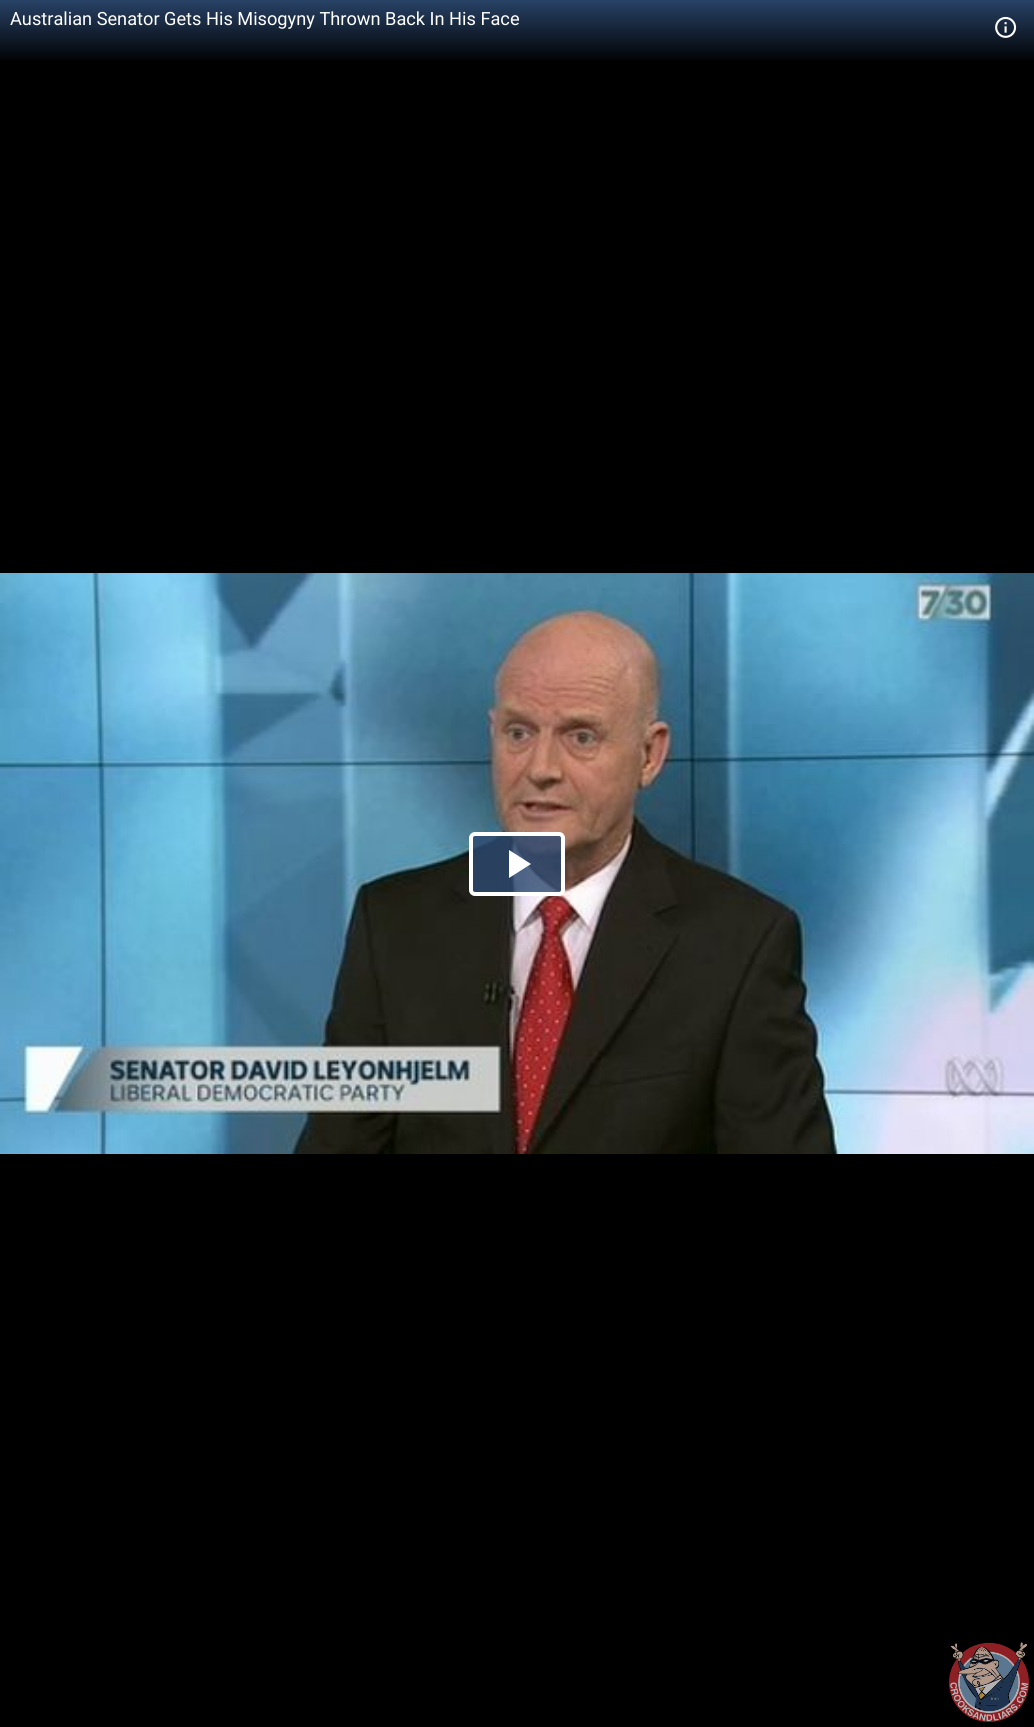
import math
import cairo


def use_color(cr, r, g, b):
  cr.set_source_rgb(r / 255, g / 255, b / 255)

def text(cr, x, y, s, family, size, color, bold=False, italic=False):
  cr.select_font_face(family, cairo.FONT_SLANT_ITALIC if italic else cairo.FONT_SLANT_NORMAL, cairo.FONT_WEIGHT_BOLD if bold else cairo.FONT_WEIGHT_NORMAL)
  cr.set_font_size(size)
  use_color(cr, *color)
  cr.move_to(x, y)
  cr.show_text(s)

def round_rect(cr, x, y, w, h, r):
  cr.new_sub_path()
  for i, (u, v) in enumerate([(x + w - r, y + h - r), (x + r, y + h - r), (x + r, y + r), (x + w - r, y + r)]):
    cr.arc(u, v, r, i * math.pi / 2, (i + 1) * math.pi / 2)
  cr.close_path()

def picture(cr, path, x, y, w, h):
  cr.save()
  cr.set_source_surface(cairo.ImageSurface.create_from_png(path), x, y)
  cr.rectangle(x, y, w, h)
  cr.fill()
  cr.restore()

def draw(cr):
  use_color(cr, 0, 0, 0)
  cr.paint()
  gradient = cairo.LinearGradient(517, 0, 517, 60)
  gradient.add_color_stop_rgba(0.01, 0.173, 0.286, 0.443, 0.9)
  gradient.add_color_stop_rgba(1, 0.173, 0.286, 0.443, 0.05)
  cr.set_source(gradient)
  cr.rectangle(0, 0, 1034, 60)
  cr.fill()
  picture(cr, "img_01.png", 995, 16, 22, 22)
  picture(cr, "img_02.png", 0, 573, 1034, 581)
  cr.set_source_rgba(0.173, 0.286, 0.443, 0.8)
  round_rect(cr, 471, 834, 92, 60, 4)
  cr.fill_preserve()
  use_color(cr, 255, 255, 255)
  cr.set_line_width(4)
  cr.stroke()
  cr.new_path()
  cr.move_to(509, 850)
  cr.line_to(509, 878)
  cr.line_to(531, 864)
  cr.close_path()
  cr.fill()
  picture(cr, "img_03.png", 949, 1642, 80, 80)
  text(cr, 10, 25, "Australian Senator Gets His Misogyny Thrown Back In His Face", "Roboto", 18.2, (255, 255, 255))


surface = cairo.ImageSurface(cairo.FORMAT_RGB24, 1034, 1727)
cr = cairo.Context(surface)
options = cairo.FontOptions()
options.set_hint_metrics(cairo.HINT_METRICS_OFF)
options.set_hint_style(cairo.HINT_STYLE_NONE)
cr.set_font_options(options)
cr.set_miter_limit(4)
draw(cr)
surface.write_to_png("out.png")
